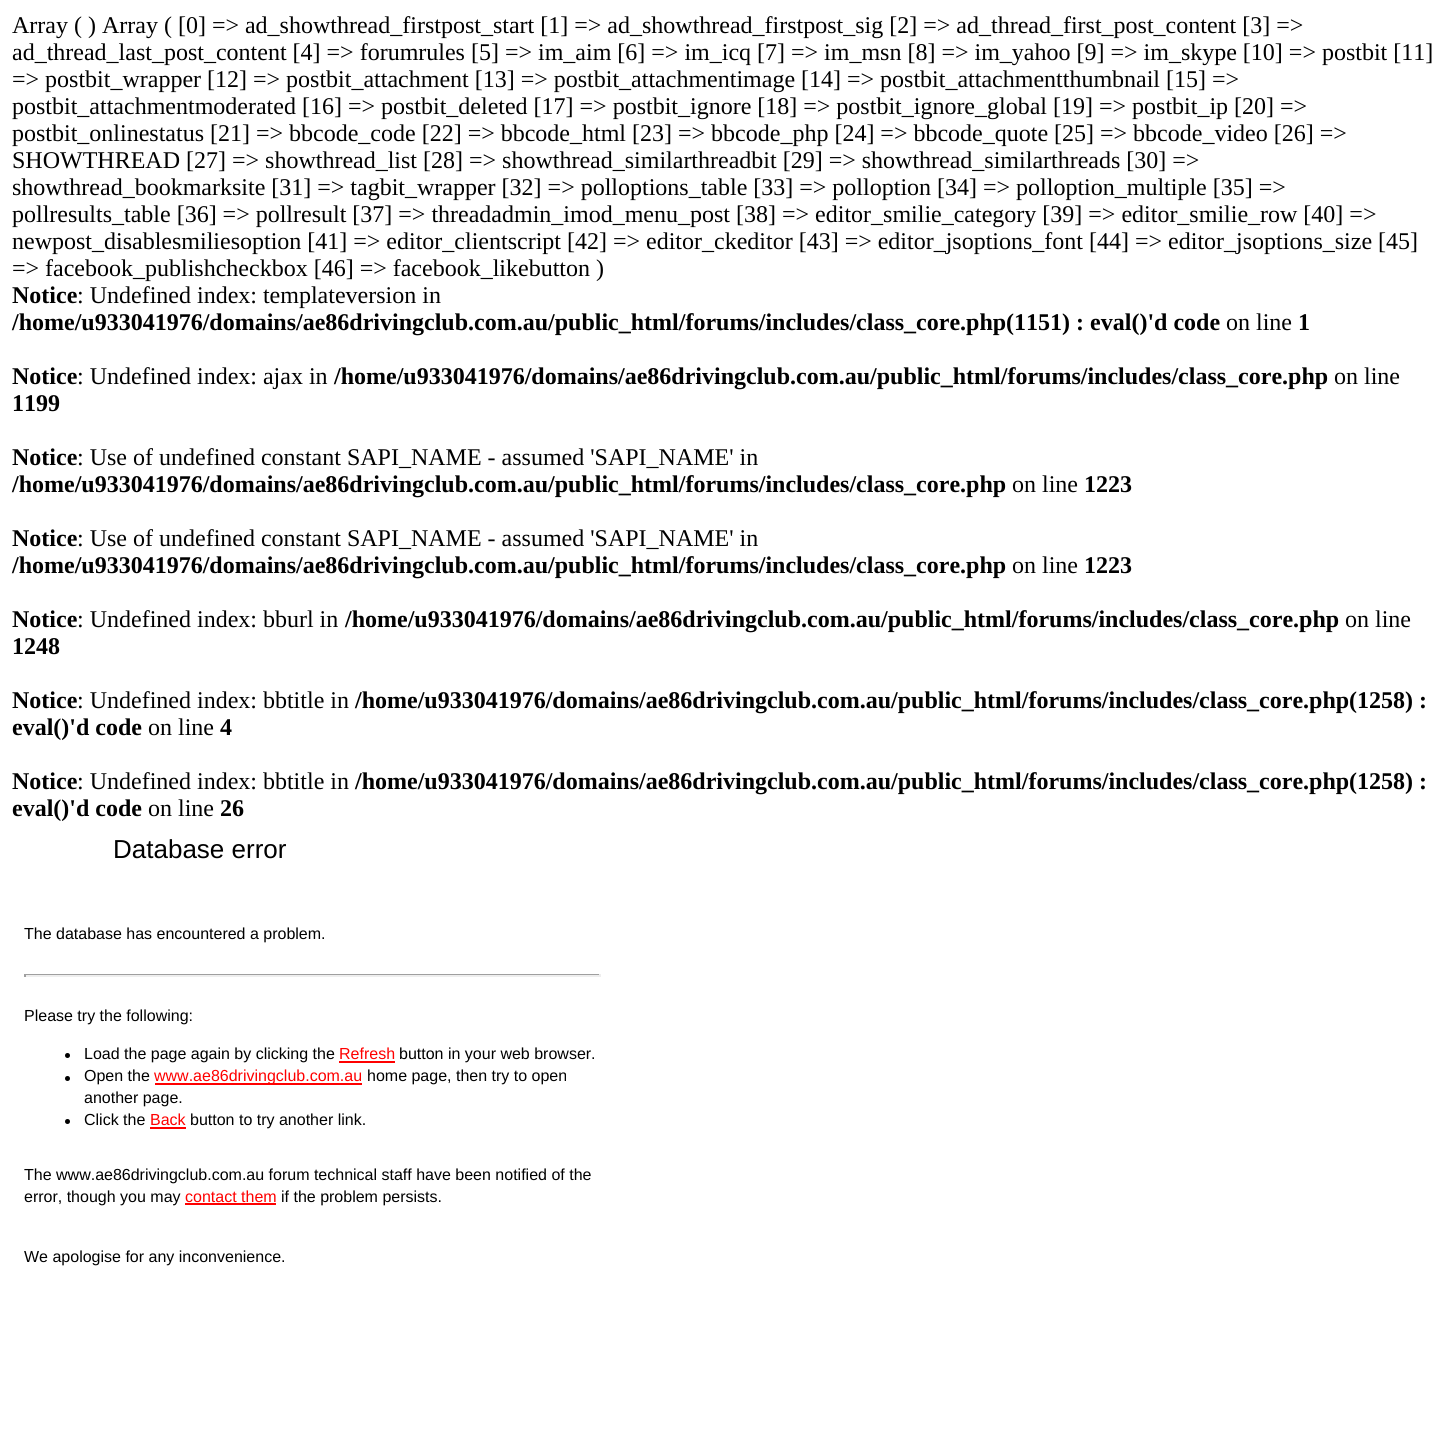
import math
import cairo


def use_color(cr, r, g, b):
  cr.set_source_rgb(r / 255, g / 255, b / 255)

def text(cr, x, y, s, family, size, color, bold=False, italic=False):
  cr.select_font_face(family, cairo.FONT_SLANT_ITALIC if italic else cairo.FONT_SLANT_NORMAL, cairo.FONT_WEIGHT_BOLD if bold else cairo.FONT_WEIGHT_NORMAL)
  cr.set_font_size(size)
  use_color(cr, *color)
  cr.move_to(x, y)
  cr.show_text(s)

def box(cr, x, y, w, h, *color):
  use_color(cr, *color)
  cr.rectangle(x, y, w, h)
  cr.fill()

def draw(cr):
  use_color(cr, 255, 255, 255)
  cr.paint()
  box(cr, 24, 974, 576, 1, 159, 159, 159)
  box(cr, 599, 974, 2, 3, 238, 238, 238)
  box(cr, 24, 975, 576, 2, 238, 238, 238)
  box(cr, 24, 974, 2, 3, 159, 159, 159)
  use_color(cr, 0, 0, 0)
  cr.arc(67.5, 1055.5, 2.5, 0, 2 * math.pi)
  cr.fill()
  box(cr, 339, 1061, 56, 2, 255, 0, 0)
  use_color(cr, 0, 0, 0)
  cr.arc(67.5, 1078.5, 2.5, 0, 2 * math.pi)
  cr.fill()
  box(cr, 155, 1083, 207, 2, 255, 0, 0)
  use_color(cr, 0, 0, 0)
  cr.arc(67.5, 1121.5, 2.5, 0, 2 * math.pi)
  cr.fill()
  box(cr, 150, 1127, 36, 2, 255, 0, 0)
  box(cr, 185, 1203, 91, 2, 255, 0, 0)
  text(cr, 12, 33, "Array ( ) Array ( [0] => ad_showthread_firstpost_start [1] => ad_showthread_firstpost_sig [2] => ad_thread_first_post_content [3] =>", "Liberation Serif", 24, (0, 0, 0))
  text(cr, 12, 60, "ad_thread_last_post_content [4] => forumrules [5] => im_aim [6] => im_icq [7] => im_msn [8] => im_yahoo [9] => im_skype [10] => postbit [11]", "Liberation Serif", 24, (0, 0, 0))
  text(cr, 12, 87, "=> postbit_wrapper [12] => postbit_attachment [13] => postbit_attachmentimage [14] => postbit_attachmentthumbnail [15] =>", "Liberation Serif", 24, (0, 0, 0))
  text(cr, 12, 114, "postbit_attachmentmoderated [16] => postbit_deleted [17] => postbit_ignore [18] => postbit_ignore_global [19] => postbit_ip [20] =>", "Liberation Serif", 24, (0, 0, 0))
  text(cr, 12, 141, "postbit_onlinestatus [21] => bbcode_code [22] => bbcode_html [23] => bbcode_php [24] => bbcode_quote [25] => bbcode_video [26] =>", "Liberation Serif", 24, (0, 0, 0))
  text(cr, 12, 168, "SHOWTHREAD [27] => showthread_list [28] => showthread_similarthreadbit [29] => showthread_similarthreads [30] =>", "Liberation Serif", 24, (0, 0, 0))
  text(cr, 12, 195, "showthread_bookmarksite [31] => tagbit_wrapper [32] => polloptions_table [33] => polloption [34] => polloption_multiple [35] =>", "Liberation Serif", 24, (0, 0, 0))
  text(cr, 12, 222, "pollresults_table [36] => pollresult [37] => threadadmin_imod_menu_post [38] => editor_smilie_category [39] => editor_smilie_row [40] =>", "Liberation Serif", 24, (0, 0, 0))
  text(cr, 12, 249, "newpost_disablesmiliesoption [41] => editor_clientscript [42] => editor_ckeditor [43] => editor_jsoptions_font [44] => editor_jsoptions_size [45]", "Liberation Serif", 24, (0, 0, 0))
  text(cr, 12, 276, "=> facebook_publishcheckbox [46] => facebook_likebutton )", "Liberation Serif", 24, (0, 0, 0))
  text(cr, 12, 303, "Notice", "Liberation Serif", 24, (0, 0, 0), bold=True)
  text(cr, 77, 303, ": Undefined index: templateversion in", "Liberation Serif", 24, (0, 0, 0))
  text(cr, 12, 330, "/home/u933041976/domains/ae86drivingclub.com.au/public_html/forums/includes/class_core.php(1151) : eval()'d code", "Liberation Serif", 24, (0, 0, 0), bold=True)
  text(cr, 1226, 330, "on line", "Liberation Serif", 24, (0, 0, 0))
  text(cr, 1298, 330, "1", "Liberation Serif", 24, (0, 0, 0), bold=True)
  text(cr, 12, 384, "Notice", "Liberation Serif", 24, (0, 0, 0), bold=True)
  text(cr, 77, 384, ": Undefined index: ajax in", "Liberation Serif", 24, (0, 0, 0))
  text(cr, 334, 384, "/home/u933041976/domains/ae86drivingclub.com.au/public_html/forums/includes/class_core.php", "Liberation Serif", 24, (0, 0, 0), bold=True)
  text(cr, 1334, 384, "on line", "Liberation Serif", 24, (0, 0, 0))
  text(cr, 12, 411, "1199", "Liberation Serif", 24, (0, 0, 0), bold=True)
  text(cr, 12, 465, "Notice", "Liberation Serif", 24, (0, 0, 0), bold=True)
  text(cr, 77, 465, ": Use of undefined constant SAPI_NAME - assumed 'SAPI_NAME' in", "Liberation Serif", 24, (0, 0, 0))
  text(cr, 12, 492, "/home/u933041976/domains/ae86drivingclub.com.au/public_html/forums/includes/class_core.php", "Liberation Serif", 24, (0, 0, 0), bold=True)
  text(cr, 1012, 492, "on line", "Liberation Serif", 24, (0, 0, 0))
  text(cr, 1084, 492, "1223", "Liberation Serif", 24, (0, 0, 0), bold=True)
  text(cr, 12, 546, "Notice", "Liberation Serif", 24, (0, 0, 0), bold=True)
  text(cr, 77, 546, ": Use of undefined constant SAPI_NAME - assumed 'SAPI_NAME' in", "Liberation Serif", 24, (0, 0, 0))
  text(cr, 12, 573, "/home/u933041976/domains/ae86drivingclub.com.au/public_html/forums/includes/class_core.php", "Liberation Serif", 24, (0, 0, 0), bold=True)
  text(cr, 1012, 573, "on line", "Liberation Serif", 24, (0, 0, 0))
  text(cr, 1084, 573, "1223", "Liberation Serif", 24, (0, 0, 0), bold=True)
  text(cr, 12, 627, "Notice", "Liberation Serif", 24, (0, 0, 0), bold=True)
  text(cr, 77, 627, ": Undefined index: bburl in", "Liberation Serif", 24, (0, 0, 0))
  text(cr, 345, 627, "/home/u933041976/domains/ae86drivingclub.com.au/public_html/forums/includes/class_core.php", "Liberation Serif", 24, (0, 0, 0), bold=True)
  text(cr, 1345, 627, "on line", "Liberation Serif", 24, (0, 0, 0))
  text(cr, 12, 654, "1248", "Liberation Serif", 24, (0, 0, 0), bold=True)
  text(cr, 12, 708, "Notice", "Liberation Serif", 24, (0, 0, 0), bold=True)
  text(cr, 77, 708, ": Undefined index: bbtitle in", "Liberation Serif", 24, (0, 0, 0))
  text(cr, 355, 708, "/home/u933041976/domains/ae86drivingclub.com.au/public_html/forums/includes/class_core.php(1258) :", "Liberation Serif", 24, (0, 0, 0), bold=True)
  text(cr, 12, 735, "eval()'d code", "Liberation Serif", 24, (0, 0, 0), bold=True)
  text(cr, 148, 735, "on line", "Liberation Serif", 24, (0, 0, 0))
  text(cr, 220, 735, "4", "Liberation Serif", 24, (0, 0, 0), bold=True)
  text(cr, 12, 789, "Notice", "Liberation Serif", 24, (0, 0, 0), bold=True)
  text(cr, 77, 789, ": Undefined index: bbtitle in", "Liberation Serif", 24, (0, 0, 0))
  text(cr, 355, 789, "/home/u933041976/domains/ae86drivingclub.com.au/public_html/forums/includes/class_core.php(1258) :", "Liberation Serif", 24, (0, 0, 0), bold=True)
  text(cr, 12, 816, "eval()'d code", "Liberation Serif", 24, (0, 0, 0), bold=True)
  text(cr, 148, 816, "on line", "Liberation Serif", 24, (0, 0, 0))
  text(cr, 220, 816, "26", "Liberation Serif", 24, (0, 0, 0), bold=True)
  text(cr, 113, 858, "Database error", "Liberation Sans", 26, (0, 0, 0))
  text(cr, 24, 939, "The database has encountered a problem.", "Liberation Sans", 16, (0, 0, 0))
  text(cr, 24, 1021, "Please try the following:", "Liberation Sans", 16, (0, 0, 0))
  text(cr, 84, 1059, "Load the page again by clicking the", "Liberation Sans", 16, (0, 0, 0))
  text(cr, 339, 1059, "Refresh", "Liberation Sans", 16, (255, 0, 0))
  text(cr, 399, 1059, "button in your web browser.", "Liberation Sans", 16, (0, 0, 0))
  text(cr, 84, 1081, "Open the", "Liberation Sans", 16, (0, 0, 0))
  text(cr, 154, 1081, "www.ae86drivingclub.com.au", "Liberation Sans", 16, (255, 0, 0))
  text(cr, 367, 1081, "home page, then try to open", "Liberation Sans", 16, (0, 0, 0))
  text(cr, 84, 1103, "another page.", "Liberation Sans", 16, (0, 0, 0))
  text(cr, 84, 1125, "Click the", "Liberation Sans", 16, (0, 0, 0))
  text(cr, 150, 1125, "Back", "Liberation Sans", 16, (255, 0, 0))
  text(cr, 190, 1125, "button to try another link.", "Liberation Sans", 16, (0, 0, 0))
  text(cr, 24, 1180, "The www.ae86drivingclub.com.au forum technical staff have been notified of the", "Liberation Sans", 16, (0, 0, 0))
  text(cr, 24, 1202, "error, though you may", "Liberation Sans", 16, (0, 0, 0))
  text(cr, 185, 1202, "contact them", "Liberation Sans", 16, (255, 0, 0))
  text(cr, 281, 1202, "if the problem persists.", "Liberation Sans", 16, (0, 0, 0))
  text(cr, 24, 1262, "We apologise for any inconvenience.", "Liberation Sans", 16, (0, 0, 0))


surface = cairo.ImageSurface(cairo.FORMAT_RGB24, 1450, 1438)
cr = cairo.Context(surface)
options = cairo.FontOptions()
options.set_hint_metrics(cairo.HINT_METRICS_OFF)
options.set_hint_style(cairo.HINT_STYLE_NONE)
cr.set_font_options(options)
cr.set_miter_limit(4)
draw(cr)
surface.write_to_png("out.png")
